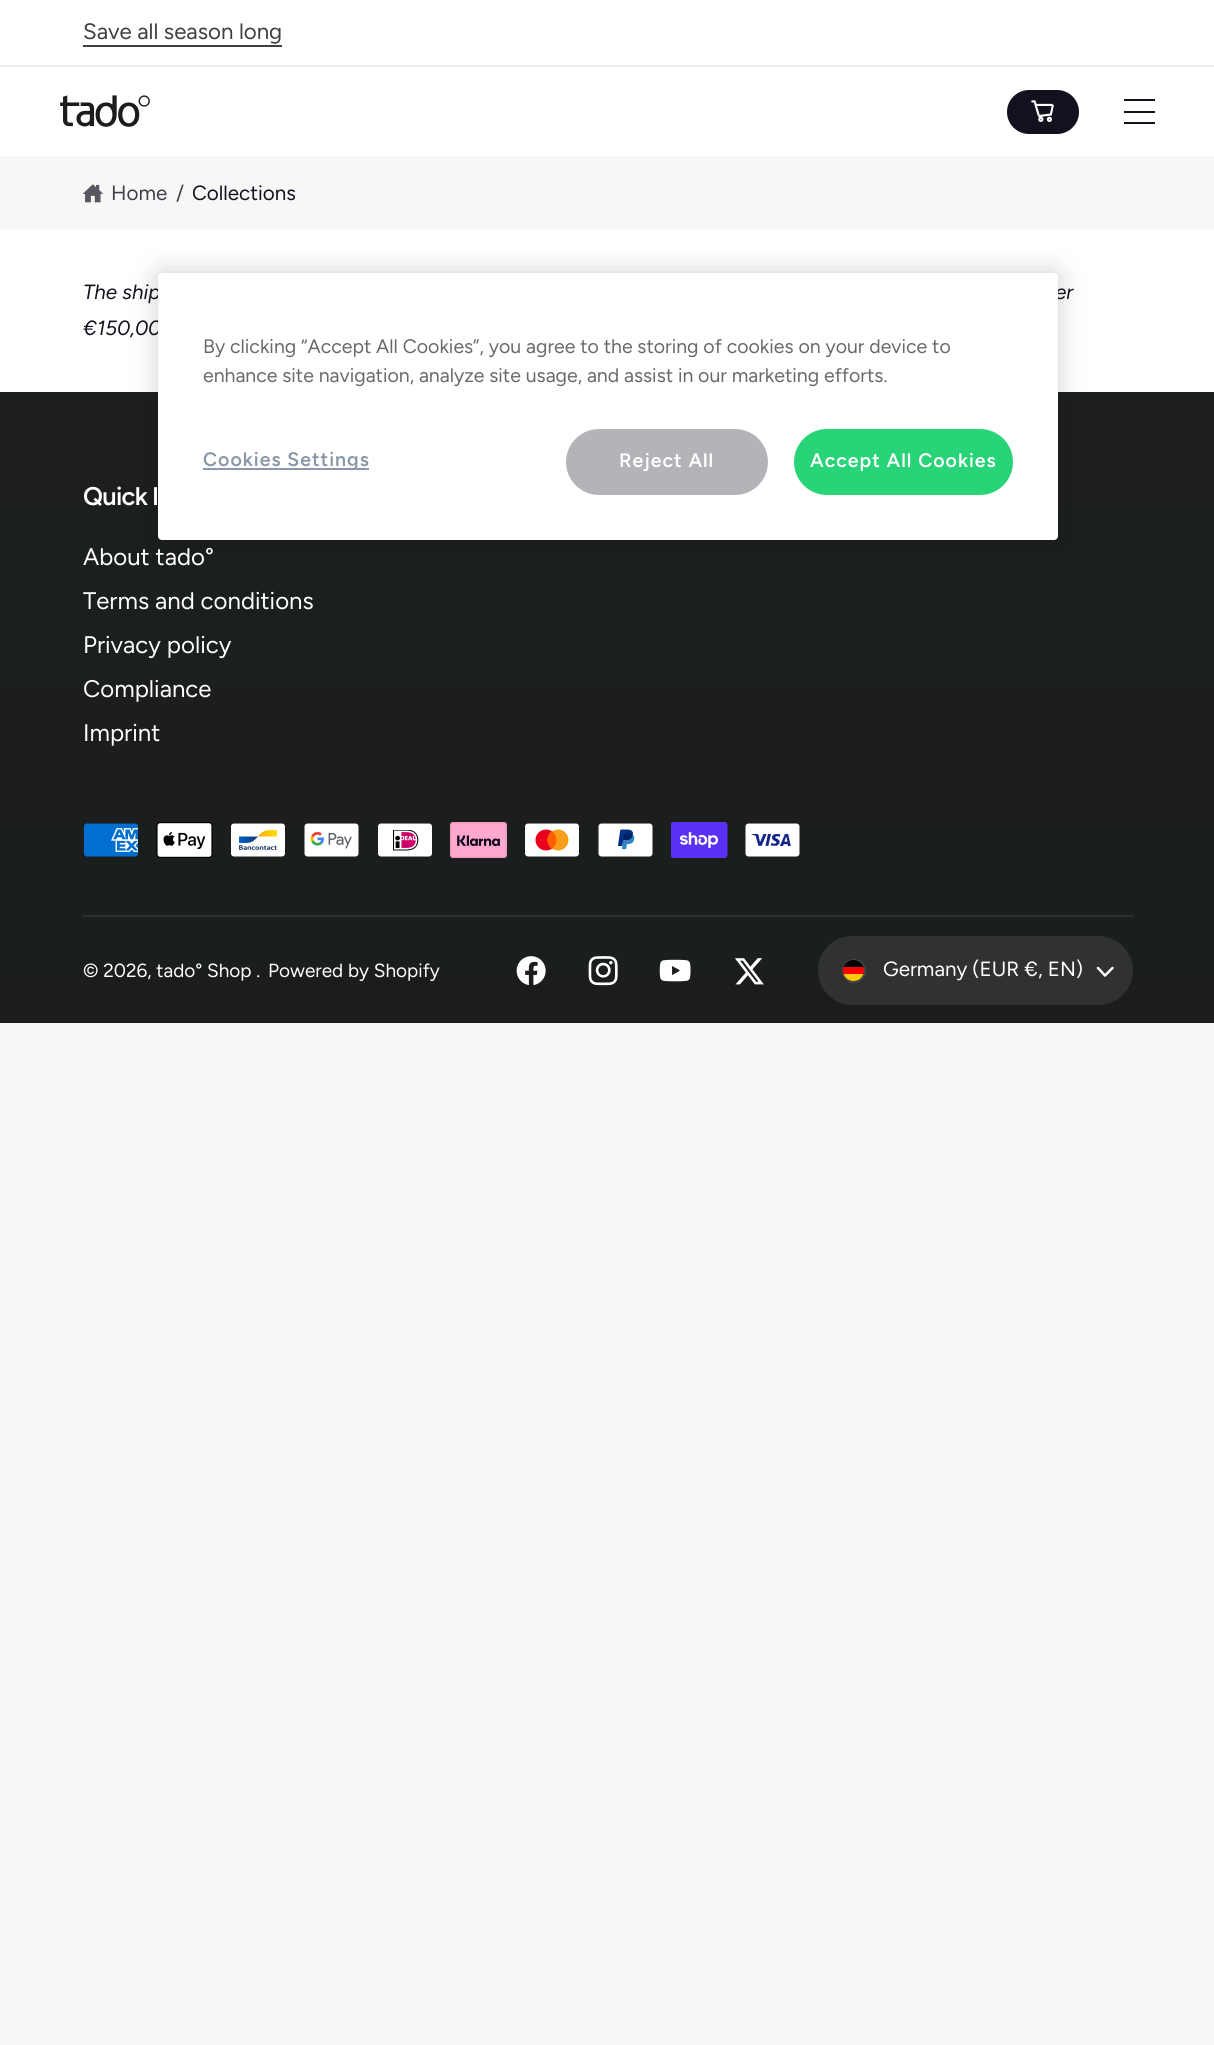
import math
import cairo


def use_color(cr, r, g, b):
  cr.set_source_rgb(r / 255, g / 255, b / 255)

def text(cr, x, y, s, family, size, color, bold=False, italic=False):
  cr.select_font_face(family, cairo.FONT_SLANT_ITALIC if italic else cairo.FONT_SLANT_NORMAL, cairo.FONT_WEIGHT_BOLD if bold else cairo.FONT_WEIGHT_NORMAL)
  cr.set_font_size(size)
  use_color(cr, *color)
  cr.move_to(x, y)
  cr.show_text(s)

def spaced_text(cr, x, y, s, letter, word):
  cr.move_to(x, y)
  for ch in s:
    cr.show_text(ch)
    cr.rel_move_to(letter + word * (ch == ' '), 0)

def box(cr, x, y, w, h, *color):
  use_color(cr, *color)
  cr.rectangle(x, y, w, h)
  cr.fill()

def round_rect(cr, x, y, w, h, r):
  cr.new_sub_path()
  for i, (u, v) in enumerate([(x + w - r, y + h - r), (x + r, y + h - r), (x + r, y + r), (x + w - r, y + r)]):
    cr.arc(u, v, r, i * math.pi / 2, (i + 1) * math.pi / 2)
  cr.close_path()

def shadow(cr, x, y, w, h, r, blur, alpha):
  cr.push_group_with_content(cairo.CONTENT_ALPHA)
  cr.set_operator(cairo.OPERATOR_SOURCE)
  for i in range(15, -16, -2):
    e = blur * i / 6
    if min(w, h) + 2 * e > 0:
      cr.set_source_rgba(0, 0, 0, alpha * math.erfc((i - 1) / 8.5) / 2)
      round_rect(cr, x - e, y - e, w + 2 * e, h + 2 * e, max(0, min(r + e + blur * .6, min(w, h) / 2 + e)))
      cr.fill()
  cr.mask(cr.pop_group())

def picture(cr, path, x, y, w, h):
  cr.save()
  cr.set_source_surface(cairo.ImageSurface.create_from_png(path), x, y)
  cr.rectangle(x, y, w, h)
  cr.fill()
  cr.restore()

def draw(cr):
  use_color(cr, 247, 247, 247)
  cr.paint()
  box(cr, 0, 0, 1214, 65, 255, 255, 255)
  box(cr, 0, 65, 1214, 2, 236, 236, 237)
  box(cr, 83, 45, 199, 2, 60, 64, 67)
  box(cr, 0, 67, 1214, 89, 255, 255, 255)
  picture(cr, "img_01.png", 60, 95, 90, 32)
  use_color(cr, 18, 17, 29)
  round_rect(cr, 1007, 90, 72, 44, 22)
  cr.fill()
  picture(cr, "img_02.png", 1031, 100, 23, 22)
  box(cr, 1124, 99, 31, 2, 18, 17, 29)
  box(cr, 1124, 111, 31, 2, 18, 17, 29)
  box(cr, 1124, 122, 31, 2, 18, 17, 29)
  picture(cr, "img_03.png", 83, 184, 20, 19)
  box(cr, 0, 230, 1214, 162, 255, 255, 255)
  gradient = cairo.LinearGradient(608, 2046, 608, 0)
  gradient.add_color_stop_rgba(0.04, 0.094, 0.102, 0.102, 1)
  gradient.add_color_stop_rgba(1, 0.118, 0.129, 0.129, 1)
  cr.set_source(gradient)
  cr.rectangle(0, 392, 1214, 523)
  cr.fill()
  use_color(cr, 0, 0, 0)
  shadow(cr, 158, 273, 900, 267, 4, 13.5, 0.2)
  picture(cr, "img_04.png", 84, 823, 54, 34)
  picture(cr, "img_05.png", 156, 822, 57, 36)
  picture(cr, "img_06.png", 231, 823, 54, 34)
  picture(cr, "img_07.png", 304, 823, 55, 34)
  picture(cr, "img_08.png", 378, 823, 54, 34)
  picture(cr, "img_09.png", 450, 822, 57, 36)
  picture(cr, "img_10.png", 525, 823, 54, 34)
  picture(cr, "img_11.png", 598, 823, 55, 34)
  picture(cr, "img_12.png", 671, 822, 57, 36)
  picture(cr, "img_13.png", 745, 823, 55, 34)
  gradient = cairo.LinearGradient(608, 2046, 608, 0)
  gradient.add_color_stop_rgba(0.04, 0.094, 0.102, 0.102, 1)
  gradient.add_color_stop_rgba(1, 0.118, 0.129, 0.129, 1)
  cr.set_source(gradient)
  cr.rectangle(0, 915, 1214, 108)
  cr.fill()
  box(cr, 83, 915, 1050, 2, 45, 48, 48)
  picture(cr, "img_14.png", 516, 956, 30, 30)
  picture(cr, "img_15.png", 588, 956, 30, 30)
  picture(cr, "img_16.png", 659, 959, 32, 23)
  picture(cr, "img_17.png", 735, 958, 29, 27)
  use_color(cr, 48, 50, 50)
  round_rect(cr, 818, 936, 315, 69, 34.5)
  cr.fill()
  cr.arc(854, 971, 11, 0, 2 * math.pi)
  use_color(cr, 69, 71, 71)
  cr.stroke()
  cr.save()
  round_rect(cr, 843, 960, 21, 21, 10.5)
  cr.clip()
  box(cr, 843, 960, 21, 7, 0, 0, 0)
  box(cr, 843, 967, 21, 7, 255, 0, 0)
  box(cr, 843, 974, 21, 7, 255, 204, 0)
  cr.restore()
  cr.new_path()
  cr.move_to(1098, 968)
  cr.line_to(1105, 975.5)
  cr.line_to(1112.5, 968)
  use_color(cr, 255, 255, 255)
  cr.set_line_width(2.5)
  cr.set_line_cap(cairo.LINE_CAP_ROUND)
  cr.set_line_join(cairo.LINE_JOIN_ROUND)
  cr.stroke()
  text(cr, 83, 39, "Save all season long", "Figtree", 22.25, (60, 64, 67))
  text(cr, 111, 200, "Home", "Figtree", 20.6, (64, 63, 73))
  text(cr, 176, 200, "/", "Figtree", 20.6, (64, 63, 73))
  text(cr, 192, 200, "Collections", "Figtree", 20.6, (18, 17, 29))
  text(cr, 83, 299, "The ship", "Figtree", 20.6, (18, 17, 29), italic=True)
  text(cr, 1055, 299, "er", "Figtree", 20.6, (18, 17, 29), italic=True)
  text(cr, 83, 335, "€150,00", "Figtree", 20.6, (18, 17, 29), italic=True)
  use_color(cr, 255, 255, 255)
  round_rect(cr, 158, 273, 900, 267, 4)
  cr.fill()
  text(cr, 203, 353, "By clicking “Accept All Cookies”, you agree to the storing of cookies on your device to", "Figtree", 19.5, (105, 105, 105))
  text(cr, 203, 382, "enhance site navigation, analyze site usage, and assist in our marketing efforts.", "Figtree", 19.5, (105, 105, 105))
  box(cr, 203, 468, 166, 2, 137, 151, 166)
  cr.select_font_face("Figtree SemiBold")
  spaced_text(cr, 203, 466, "Cookies Settings", 1, 0)
  use_color(cr, 180, 180, 184)
  round_rect(cr, 567, 430, 200, 64, 32)
  cr.fill_preserve()
  cr.set_line_width(2)
  cr.set_line_cap(cairo.LINE_CAP_BUTT)
  cr.set_line_join(cairo.LINE_JOIN_MITER)
  cr.stroke()
  use_color(cr, 255, 255, 255)
  spaced_text(cr, 619, 467, "Reject All", 1, 0)
  use_color(cr, 41, 211, 119)
  round_rect(cr, 795, 430, 217, 64, 32)
  cr.fill_preserve()
  cr.stroke()
  use_color(cr, 255, 255, 255)
  spaced_text(cr, 810, 467, "Accept All Cookies", 1, 0)
  cr.set_font_size(25.5)
  spaced_text(cr, 83, 505, "Quick l", -0.75, 0)
  text(cr, 83, 565, "About tado°", "Figtree", 24, (255, 255, 255))
  text(cr, 83, 609, "Terms and conditions", "Figtree", 24, (255, 255, 255))
  text(cr, 83, 653, "Privacy policy", "Figtree", 24, (255, 255, 255))
  text(cr, 83, 697, "Compliance", "Figtree", 24, (255, 255, 255))
  text(cr, 83, 741, "Imprint", "Figtree", 24, (255, 255, 255))
  text(cr, 83, 977, "© 2026, tado° Shop .", "Figtree", 19, (255, 255, 255))
  text(cr, 268, 977, "Powered by Shopify", "Figtree", 19, (255, 255, 255))
  text(cr, 883, 976, "Germany (EUR €, EN)", "Figtree", 20.6, (255, 255, 255))


surface = cairo.ImageSurface(cairo.FORMAT_RGB24, 1214, 2045)
cr = cairo.Context(surface)
options = cairo.FontOptions()
options.set_hint_metrics(cairo.HINT_METRICS_OFF)
options.set_hint_style(cairo.HINT_STYLE_NONE)
cr.set_font_options(options)
cr.set_miter_limit(4)
draw(cr)
surface.write_to_png("out.png")
